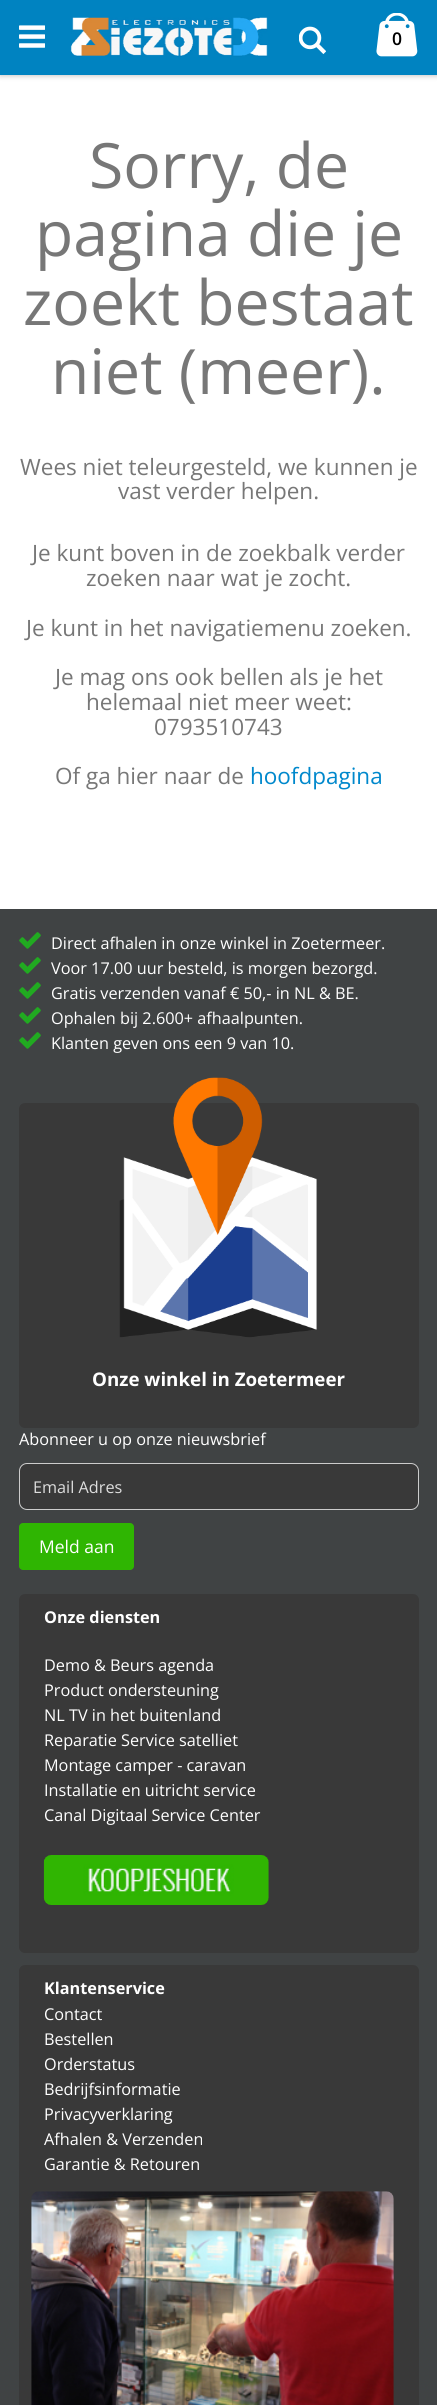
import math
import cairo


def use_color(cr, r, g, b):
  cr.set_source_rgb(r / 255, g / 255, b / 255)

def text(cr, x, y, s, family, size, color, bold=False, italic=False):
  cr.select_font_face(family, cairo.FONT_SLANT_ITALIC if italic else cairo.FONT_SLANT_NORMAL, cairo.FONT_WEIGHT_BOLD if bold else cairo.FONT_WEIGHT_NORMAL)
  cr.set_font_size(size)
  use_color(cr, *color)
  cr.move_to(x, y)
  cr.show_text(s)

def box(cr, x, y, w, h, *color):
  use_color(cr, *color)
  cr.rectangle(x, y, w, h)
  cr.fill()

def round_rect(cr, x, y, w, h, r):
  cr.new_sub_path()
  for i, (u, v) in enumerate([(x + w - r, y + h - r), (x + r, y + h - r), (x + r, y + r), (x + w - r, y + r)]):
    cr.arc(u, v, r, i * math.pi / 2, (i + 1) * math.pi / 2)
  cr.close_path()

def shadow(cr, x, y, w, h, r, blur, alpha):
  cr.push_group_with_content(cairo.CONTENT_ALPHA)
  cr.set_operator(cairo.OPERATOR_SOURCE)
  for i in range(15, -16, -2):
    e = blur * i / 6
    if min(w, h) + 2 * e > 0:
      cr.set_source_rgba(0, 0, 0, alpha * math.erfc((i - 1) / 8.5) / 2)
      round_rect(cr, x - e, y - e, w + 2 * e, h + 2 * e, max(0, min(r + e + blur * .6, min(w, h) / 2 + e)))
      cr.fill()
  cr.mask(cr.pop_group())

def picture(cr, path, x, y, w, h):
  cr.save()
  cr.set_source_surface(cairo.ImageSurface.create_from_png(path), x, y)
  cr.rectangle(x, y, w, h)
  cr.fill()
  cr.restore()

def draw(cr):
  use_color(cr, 255, 255, 255)
  cr.paint()
  use_color(cr, 0, 0, 0)
  shadow(cr, 0, 0, 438, 75, 0, 3, 0.3)
  box(cr, 0, 0, 437, 75, 0, 131, 193)
  picture(cr, "img_01.png", 19, 25, 26, 23)
  picture(cr, "img_02.png", 70, 17, 198, 40)
  picture(cr, "img_03.png", 299, 26, 27, 29)
  picture(cr, "img_04.png", 376, 13, 42, 44)
  box(cr, 0, 909, 437, 1496, 64, 67, 68)
  picture(cr, "img_05.png", 19, 932, 22, 17)
  picture(cr, "img_05.png", 19, 957, 22, 17)
  picture(cr, "img_05.png", 19, 982, 22, 17)
  picture(cr, "img_05.png", 19, 1007, 22, 17)
  picture(cr, "img_05.png", 19, 1032, 22, 17)
  use_color(cr, 57, 57, 57)
  round_rect(cr, 19, 1103, 400, 325, 6)
  cr.fill()
  picture(cr, "img_06.png", 119, 1077, 198, 261)
  round_rect(cr, 19.5, 1463.5, 399, 46, 7.5)
  cr.fill_preserve()
  use_color(cr, 204, 204, 204)
  cr.set_line_width(1)
  cr.stroke()
  use_color(cr, 47, 181, 2)
  round_rect(cr, 19.5, 1523.5, 114, 46, 3.5)
  cr.fill_preserve()
  cr.stroke()
  use_color(cr, 57, 57, 57)
  round_rect(cr, 19, 1594, 400, 359, 6)
  cr.fill()
  picture(cr, "img_07.png", 43, 1855, 226, 50)
  round_rect(cr, 19, 1965, 400, 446, 6)
  cr.fill()
  picture(cr, "img_08.png", 31, 2191, 363, 214)
  text(cr, 392, 45, "0", "Open Sans SemiBold", 17.5, (0, 0, 0))
  text(cr, 89, 188, "Sorry, de", "Open Sans", 62.5, (119, 119, 119))
  text(cr, 35, 256, "pagina die je", "Open Sans", 62.5, (119, 119, 119))
  text(cr, 23, 325, "zoekt bestaat", "Open Sans", 62.5, (119, 119, 119))
  text(cr, 51, 394, "niet (meer).", "Open Sans", 62.5, (119, 119, 119))
  text(cr, 20, 475, "Wees niet teleurgesteld, we kunnen je", "Open Sans", 22.5, (119, 119, 119))
  text(cr, 118, 499, "vast verder helpen.", "Open Sans", 22.5, (119, 119, 119))
  text(cr, 32, 561, "Je kunt boven in de zoekbalk verder", "Open Sans", 22.5, (119, 119, 119))
  text(cr, 86, 586, "zoeken naar wat je zocht.", "Open Sans", 22.5, (119, 119, 119))
  text(cr, 26, 636, "Je kunt in het navigatiemenu zoeken.", "Open Sans", 22.5, (119, 119, 119))
  text(cr, 55, 685, "Je mag ons ook bellen als je het", "Open Sans", 22.5, (119, 119, 119))
  text(cr, 86, 710, "helemaal niet meer weet:", "Open Sans", 22.5, (119, 119, 119))
  text(cr, 154, 735, "0793510743", "Open Sans", 22.5, (119, 119, 119))
  text(cr, 55, 784, "Of ga hier naar de", "Open Sans", 22.5, (119, 119, 119))
  text(cr, 250, 784, "hoofdpagina", "Open Sans", 22.5, (0, 136, 204))
  text(cr, 51, 949, "Direct afhalen in onze winkel in Zoetermeer.", "Open Sans", 16.25, (255, 255, 255))
  text(cr, 51, 974, "Voor 17.00 uur besteld, is morgen bezorgd.", "Open Sans", 16.25, (255, 255, 255))
  text(cr, 51, 999, "Gratis verzenden vanaf € 50,- in NL & BE.", "Open Sans", 16.25, (255, 255, 255))
  text(cr, 51, 1024, "Ophalen bij 2.600+ afhaalpunten.", "Open Sans", 16.25, (255, 255, 255))
  text(cr, 51, 1049, "Klanten geven ons een 9 van 10.", "Open Sans", 16.25, (255, 255, 255))
  text(cr, 92, 1386, "Onze winkel in Zoetermeer", "Open Sans", 18.75, (255, 255, 255), bold=True)
  text(cr, 19, 1445, "Abonneer u op onze nieuwsbrief", "Open Sans", 16.25, (255, 255, 255))
  text(cr, 33, 1493, "Email Adres", "Open Sans", 16.25, (221, 221, 221))
  text(cr, 39, 1553, "Meld aan", "Open Sans", 17.5, (255, 255, 255))
  text(cr, 44, 1623, "Onze diensten", "Open Sans", 16.25, (255, 255, 255), bold=True)
  text(cr, 44, 1671, "Demo & Beurs agenda", "Open Sans", 16.25, (255, 255, 255))
  text(cr, 44, 1696, "Product ondersteuning", "Open Sans", 16.25, (255, 255, 255))
  text(cr, 44, 1721, "NL TV in het buitenland", "Open Sans", 16.25, (255, 255, 255))
  text(cr, 44, 1746, "Reparatie Service satelliet", "Open Sans", 16.25, (255, 255, 255))
  text(cr, 44, 1771, "Montage camper - caravan", "Open Sans", 16.25, (255, 255, 255))
  text(cr, 44, 1796, "Installatie en uitricht service", "Open Sans", 16.25, (255, 255, 255))
  text(cr, 44, 1821, "Canal Digitaal Service Center", "Open Sans", 16.25, (255, 255, 255))
  text(cr, 44, 1994, "Klantenservice", "Open Sans", 16.25, (255, 255, 255), bold=True)
  text(cr, 44, 2020, "Contact", "Open Sans", 16.25, (255, 255, 255))
  text(cr, 44, 2045, "Bestellen", "Open Sans", 16.25, (255, 255, 255))
  text(cr, 44, 2070, "Orderstatus", "Open Sans", 16.25, (255, 255, 255))
  text(cr, 44, 2095, "Bedrijfsinformatie", "Open Sans", 16.25, (255, 255, 255))
  text(cr, 44, 2120, "Privacyverklaring", "Open Sans", 16.25, (255, 255, 255))
  text(cr, 44, 2145, "Afhalen & Verzenden", "Open Sans", 16.25, (255, 255, 255))
  text(cr, 44, 2170, "Garantie & Retouren", "Open Sans", 16.25, (255, 255, 255))


surface = cairo.ImageSurface(cairo.FORMAT_RGB24, 437, 2405)
cr = cairo.Context(surface)
options = cairo.FontOptions()
options.set_hint_metrics(cairo.HINT_METRICS_OFF)
options.set_hint_style(cairo.HINT_STYLE_NONE)
cr.set_font_options(options)
cr.set_miter_limit(4)
draw(cr)
surface.write_to_png("out.png")
